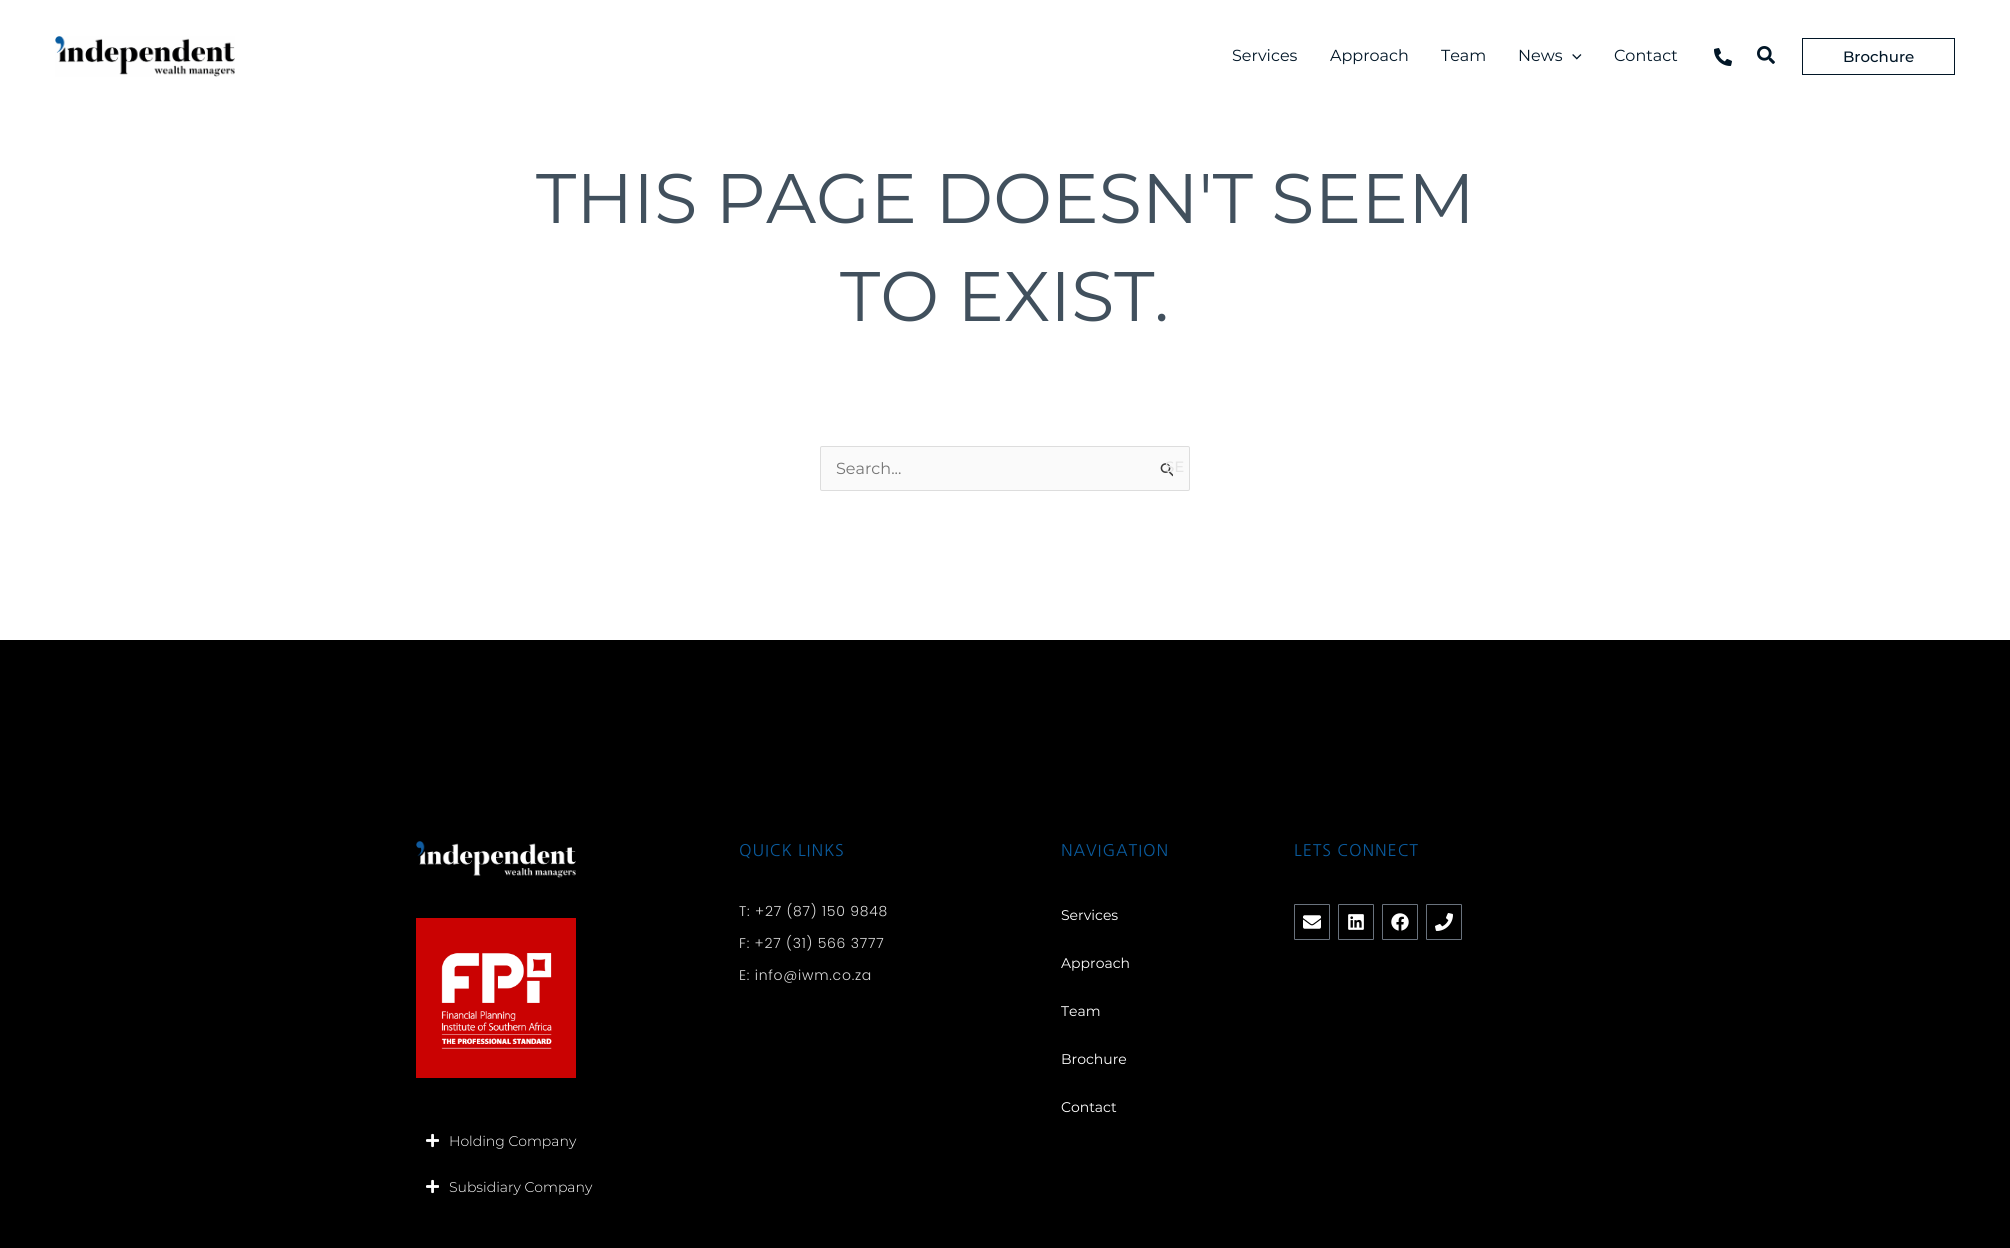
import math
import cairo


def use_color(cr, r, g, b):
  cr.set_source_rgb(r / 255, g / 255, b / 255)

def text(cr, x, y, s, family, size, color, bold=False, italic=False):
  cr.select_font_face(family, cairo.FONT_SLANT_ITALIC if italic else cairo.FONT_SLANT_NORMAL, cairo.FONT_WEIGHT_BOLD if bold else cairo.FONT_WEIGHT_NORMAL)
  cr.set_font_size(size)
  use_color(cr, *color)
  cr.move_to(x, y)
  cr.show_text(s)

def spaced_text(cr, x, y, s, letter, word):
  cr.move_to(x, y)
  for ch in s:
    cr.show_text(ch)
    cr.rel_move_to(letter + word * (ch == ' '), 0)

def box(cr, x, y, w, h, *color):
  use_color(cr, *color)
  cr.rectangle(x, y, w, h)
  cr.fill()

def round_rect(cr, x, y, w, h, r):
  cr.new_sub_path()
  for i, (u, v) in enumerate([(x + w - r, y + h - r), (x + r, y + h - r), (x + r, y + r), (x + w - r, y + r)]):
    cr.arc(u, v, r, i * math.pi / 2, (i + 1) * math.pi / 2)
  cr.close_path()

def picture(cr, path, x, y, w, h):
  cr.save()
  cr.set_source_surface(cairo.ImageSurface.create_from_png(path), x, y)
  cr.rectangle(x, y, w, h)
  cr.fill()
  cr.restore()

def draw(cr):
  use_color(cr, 255, 255, 255)
  cr.paint()
  picture(cr, "img_01.png", 55, 36, 180, 41)
  picture(cr, "img_02.png", 1572, 54, 10, 6)
  picture(cr, "img_03.png", 1714, 48, 18, 18)
  picture(cr, "img_04.png", 1757, 46, 18, 18)
  cr.rectangle(1802.5, 38.5, 152, 36)
  use_color(cr, 1, 22, 39)
  cr.set_line_width(1)
  cr.stroke()
  use_color(cr, 250, 250, 250)
  round_rect(cr, 820.5, 446.5, 369, 44, 1.5)
  cr.fill_preserve()
  use_color(cr, 221, 221, 221)
  cr.stroke()
  picture(cr, "img_05.png", 1160, 463, 13, 14)
  box(cr, 0, 640, 2010, 608, 0, 0, 0)
  round_rect(cr, 1294.5, 904.5, 35, 35, 0.5)
  use_color(cr, 105, 114, 125)
  cr.stroke()
  picture(cr, "img_06.png", 1303, 915, 18, 14)
  round_rect(cr, 1338.5, 904.5, 35, 35, 0.5)
  cr.stroke()
  picture(cr, "img_07.png", 1348, 914, 16, 16)
  round_rect(cr, 1382.5, 904.5, 35, 35, 0.5)
  cr.stroke()
  picture(cr, "img_08.png", 1391, 913, 18, 18)
  round_rect(cr, 1426.5, 904.5, 35, 35, 0.5)
  cr.stroke()
  picture(cr, "img_09.png", 1435, 913, 18, 18)
  picture(cr, "img_10.png", 416, 841, 160, 37)
  picture(cr, "img_11.png", 416, 918, 160, 160)
  picture(cr, "img_12.png", 426, 1133, 13, 15)
  picture(cr, "img_12.png", 426, 1179, 13, 15)
  text(cr, 1232, 61, "Services", "Montserrat", 16, (1, 22, 39))
  text(cr, 1330, 61, "Approach", "Montserrat", 16, (1, 22, 39))
  text(cr, 1441, 61, "Team", "Montserrat", 16, (1, 22, 39))
  text(cr, 1518, 61, "News", "Montserrat", 16, (1, 22, 39))
  text(cr, 1614, 61, "Contact", "Montserrat", 16, (1, 22, 39))
  text(cr, 1843, 62, "Brochure", "Montserrat Medium", 15, (1, 22, 39))
  text(cr, 536, 223, "THIS PAGE DOESN'T SEEM", "Montserrat", 70, (65, 80, 93))
  text(cr, 840, 321, "TO EXIST.", "Montserrat", 70, (65, 80, 93))
  text(cr, 836, 474, "Search...", "Montserrat", 16, (117, 117, 117))
  text(cr, 1165, 472, "SE", "Montserrat Medium", 15, (229, 229, 229))
  cr.select_font_face("NanumGothic")
  cr.set_font_size(16)
  use_color(cr, 10, 91, 158)
  spaced_text(cr, 739, 856, "QUICK LINKS", 0.9, 0)
  cr.select_font_face("Poppins Light")
  cr.set_font_size(14)
  use_color(cr, 218, 218, 218)
  spaced_text(cr, 739, 916, "T: +27 (87) 150 9848", 0.75, 0)
  spaced_text(cr, 739, 948, "F: +27 (31) 566 3777", 0.75, 0)
  spaced_text(cr, 739, 980, "E: info@iwm.co.za", 0.75, 0)
  cr.select_font_face("NanumGothic")
  cr.set_font_size(16)
  use_color(cr, 10, 91, 158)
  spaced_text(cr, 1061, 856, "NAVIGATION", 0.9, 0)
  text(cr, 1061, 920, "Services", "Montserrat", 14, (255, 255, 255))
  text(cr, 1061, 968, "Approach", "Montserrat", 14, (255, 255, 255))
  text(cr, 1061, 1016, "Team", "Montserrat", 14, (255, 255, 255))
  text(cr, 1061, 1064, "Brochure", "Montserrat", 14, (255, 255, 255))
  text(cr, 1061, 1112, "Contact", "Montserrat", 14, (255, 255, 255))
  cr.select_font_face("NanumGothic")
  cr.set_font_size(16)
  use_color(cr, 10, 91, 158)
  spaced_text(cr, 1294, 856, "LETS CONNECT", 0.9, 0)
  text(cr, 449, 1146, "Holding Company", "Montserrat Light", 14, (255, 255, 255))
  text(cr, 449, 1192, "Subsidiary Company", "Montserrat Light", 14, (255, 255, 255))


surface = cairo.ImageSurface(cairo.FORMAT_RGB24, 2010, 1248)
cr = cairo.Context(surface)
options = cairo.FontOptions()
options.set_hint_metrics(cairo.HINT_METRICS_OFF)
options.set_hint_style(cairo.HINT_STYLE_NONE)
cr.set_font_options(options)
cr.set_miter_limit(4)
draw(cr)
surface.write_to_png("out.png")
